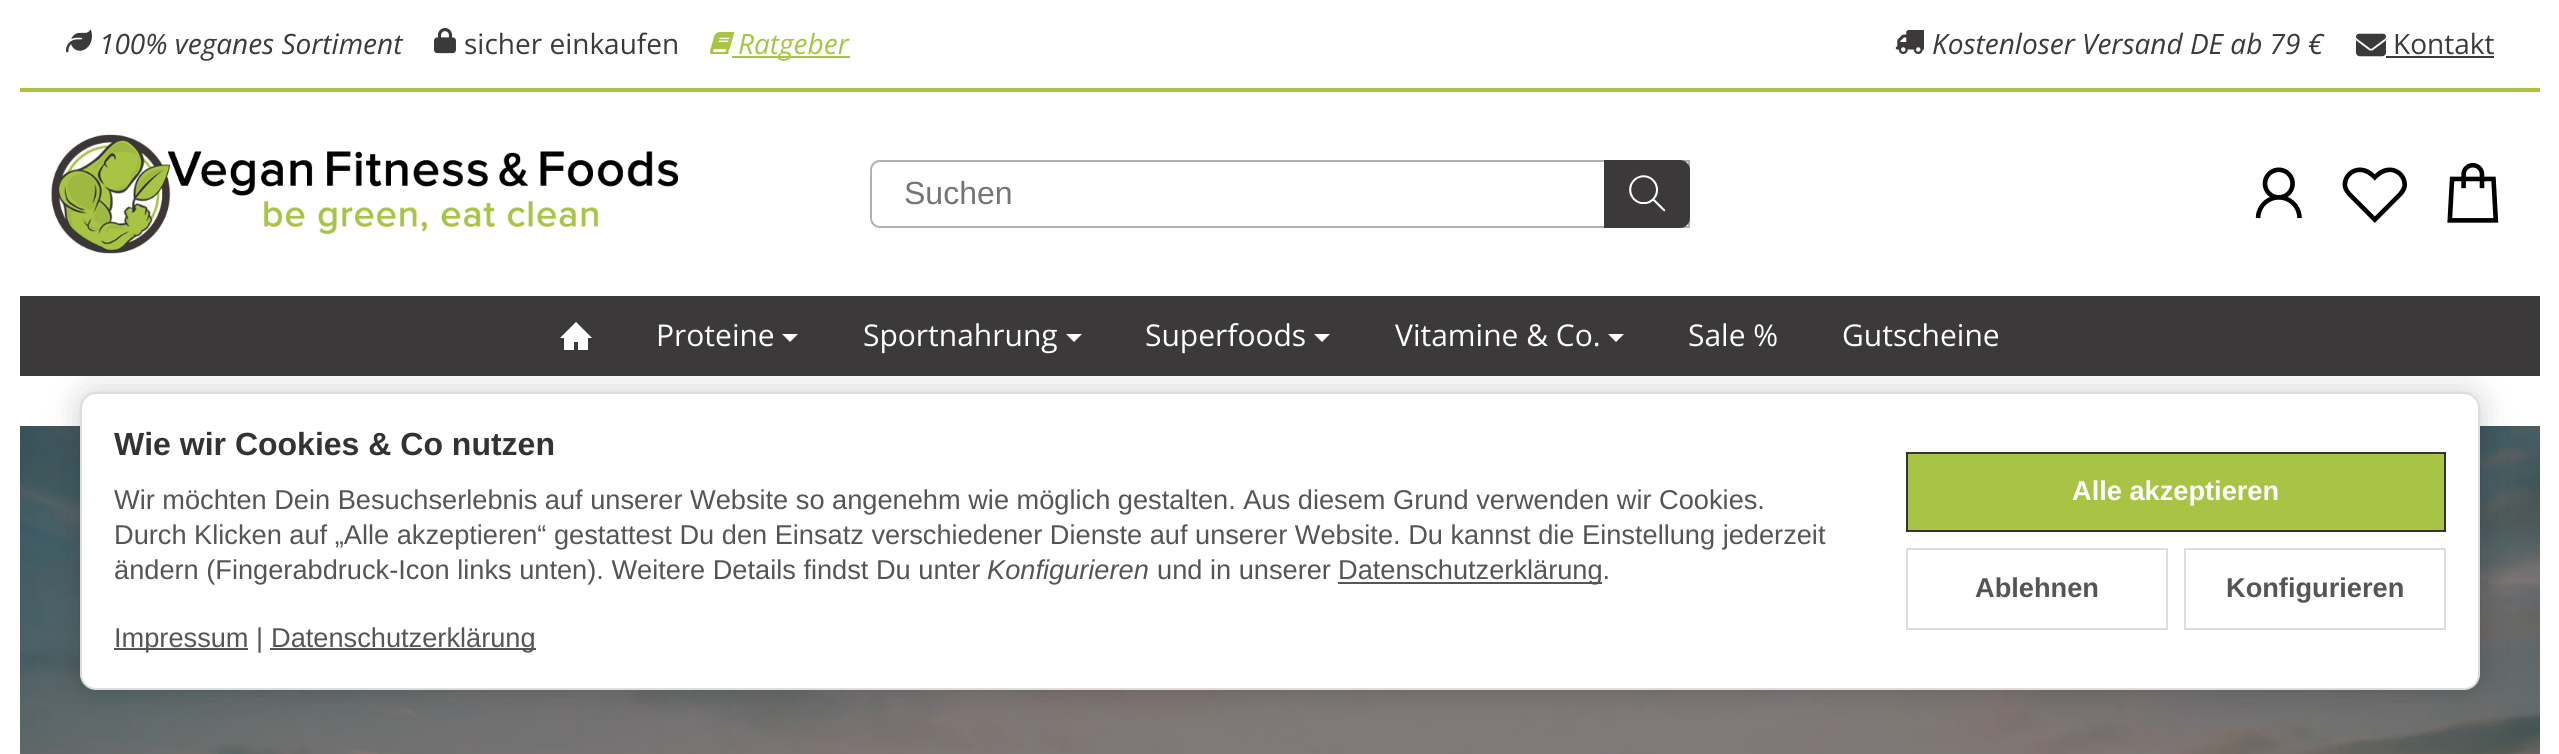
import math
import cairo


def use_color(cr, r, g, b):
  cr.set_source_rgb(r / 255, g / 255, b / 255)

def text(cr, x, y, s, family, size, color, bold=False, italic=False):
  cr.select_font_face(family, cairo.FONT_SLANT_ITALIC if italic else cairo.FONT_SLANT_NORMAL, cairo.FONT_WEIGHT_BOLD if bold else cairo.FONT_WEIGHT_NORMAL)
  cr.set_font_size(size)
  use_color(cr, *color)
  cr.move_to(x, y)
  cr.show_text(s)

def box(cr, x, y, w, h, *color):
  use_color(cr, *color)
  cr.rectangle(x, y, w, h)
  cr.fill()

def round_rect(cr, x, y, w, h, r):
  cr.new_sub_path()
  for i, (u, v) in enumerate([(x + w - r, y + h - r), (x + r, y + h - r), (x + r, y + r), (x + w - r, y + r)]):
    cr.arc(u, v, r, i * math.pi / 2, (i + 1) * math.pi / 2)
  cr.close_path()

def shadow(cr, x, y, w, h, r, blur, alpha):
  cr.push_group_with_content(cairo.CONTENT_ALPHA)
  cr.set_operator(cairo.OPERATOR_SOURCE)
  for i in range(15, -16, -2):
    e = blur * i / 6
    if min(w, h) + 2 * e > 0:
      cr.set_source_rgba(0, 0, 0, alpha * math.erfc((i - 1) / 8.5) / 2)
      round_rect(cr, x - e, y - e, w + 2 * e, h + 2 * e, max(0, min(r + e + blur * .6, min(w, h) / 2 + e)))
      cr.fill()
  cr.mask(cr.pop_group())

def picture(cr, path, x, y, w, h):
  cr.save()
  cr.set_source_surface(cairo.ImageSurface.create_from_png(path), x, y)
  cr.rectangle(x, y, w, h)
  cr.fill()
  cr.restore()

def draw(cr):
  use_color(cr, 255, 255, 255)
  cr.paint()
  box(cr, 20, 88, 2520, 4, 167, 196, 69)
  picture(cr, "img_01.png", 66, 29, 26, 24)
  picture(cr, "img_02.png", 434, 28, 22, 26)
  picture(cr, "img_03.png", 709, 32, 26, 22)
  box(cr, 732, 56, 118, 2, 167, 196, 69)
  picture(cr, "img_04.png", 1895, 30, 29, 24)
  picture(cr, "img_05.png", 2356, 33, 30, 24)
  box(cr, 2386, 56, 108, 2, 59, 57, 58)
  picture(cr, "img_06.png", 51, 134, 627, 120)
  cr.new_path()
  cr.move_to(880, 161)
  cr.line_to(1689, 161)
  cr.line_to(1689, 227)
  cr.line_to(880, 227)
  cr.curve_to(875, 227, 871, 223, 871, 218)
  cr.line_to(871, 170)
  cr.curve_to(871, 165, 875, 161, 880, 161)
  cr.close_path()
  use_color(cr, 176, 176, 176)
  cr.stroke()
  use_color(cr, 59, 57, 58)
  cr.new_path()
  cr.move_to(1604, 160)
  cr.line_to(1680, 160)
  cr.curve_to(1685.5, 160, 1690, 164.5, 1690, 170)
  cr.line_to(1690, 218)
  cr.curve_to(1690, 223.5, 1685.5, 228, 1680, 228)
  cr.line_to(1604, 228)
  cr.close_path()
  cr.fill()
  picture(cr, "img_07.png", 1629, 175, 37, 37)
  picture(cr, "img_08.png", 2255, 167, 47, 52)
  picture(cr, "img_09.png", 2342, 167, 65, 56)
  picture(cr, "img_10.png", 2447, 162, 52, 61)
  box(cr, 20, 296, 2520, 80, 59, 57, 58)
  use_color(cr, 255, 255, 255)
  cr.new_path()
  cr.move_to(564, 350)
  cr.line_to(574, 350)
  cr.line_to(574, 342)
  cr.line_to(578, 342)
  cr.line_to(578, 350)
  cr.line_to(588, 350)
  cr.line_to(588, 338)
  cr.line_to(592, 338)
  cr.line_to(576, 322)
  cr.line_to(560, 338)
  cr.line_to(564, 338)
  cr.close_path()
  cr.fill()
  cr.new_path()
  cr.move_to(782, 334)
  cr.line_to(798, 334)
  cr.line_to(790, 342)
  cr.close_path()
  cr.fill()
  cr.new_path()
  cr.move_to(1066, 334)
  cr.line_to(1082, 334)
  cr.line_to(1074, 342)
  cr.close_path()
  cr.fill()
  cr.new_path()
  cr.move_to(1314, 334)
  cr.line_to(1330, 334)
  cr.line_to(1322, 342)
  cr.close_path()
  cr.fill()
  cr.new_path()
  cr.move_to(1608, 334)
  cr.line_to(1624, 334)
  cr.line_to(1616, 342)
  cr.close_path()
  cr.fill()
  picture(cr, "img_11.png", 20, 426, 2520, 328)
  use_color(cr, 0, 0, 0)
  shadow(cr, 80, 392, 2400, 298, 16, 16, 0.2)
  use_color(cr, 255, 255, 255)
  round_rect(cr, 81, 393, 2398, 296, 15)
  cr.fill_preserve()
  use_color(cr, 221, 221, 221)
  cr.stroke()
  box(cr, 1338, 582, 264, 2, 85, 85, 85)
  box(cr, 114, 648, 134, 2, 85, 85, 85)
  box(cr, 270, 648, 266, 2, 85, 85, 85)
  use_color(cr, 167, 196, 69)
  cr.rectangle(1907, 453, 538, 78)
  cr.fill_preserve()
  use_color(cr, 51, 51, 51)
  cr.stroke()
  cr.rectangle(1907, 549, 260, 80)
  use_color(cr, 221, 221, 221)
  cr.stroke()
  cr.rectangle(2185, 549, 260, 80)
  cr.stroke()
  text(cr, 99, 54, "100% veganes Sortiment", "Open Sans", 28, (59, 57, 58), italic=True)
  text(cr, 464, 54, "sicher einkaufen", "Open Sans", 28, (59, 57, 58))
  text(cr, 738, 54, "Ratgeber", "Open Sans", 28, (167, 196, 69), italic=True)
  text(cr, 1932, 54, "Kostenloser Versand DE ab 79 €", "Open Sans", 28, (59, 57, 58), italic=True)
  text(cr, 2393, 54, "Kontakt", "Open Sans", 28, (59, 57, 58))
  text(cr, 904, 204, "Suchen", "Liberation Sans", 32, (117, 117, 117))
  text(cr, 656, 346, "Proteine", "Open Sans", 30, (255, 255, 255))
  text(cr, 863, 346, "Sportnahrung", "Open Sans", 30, (255, 255, 255))
  text(cr, 1145, 346, "Superfoods", "Open Sans", 30, (255, 255, 255))
  text(cr, 1395, 346, "Vitamine & Co.", "Open Sans", 30, (255, 255, 255))
  text(cr, 1688, 346, "Sale %", "Open Sans", 30, (255, 255, 255))
  text(cr, 1842, 346, "Gutscheine", "Open Sans", 30, (255, 255, 255))
  text(cr, 114, 455, "Wie wir Cookies & Co nutzen", "Liberation Sans", 32, (51, 51, 51), bold=True)
  text(cr, 114, 509, "Wir möchten Dein Besuchserlebnis auf unserer Website so angenehm wie möglich gestalten. Aus diesem Grund verwenden wir Cookies.", "Liberation Sans", 27.2, (85, 85, 85))
  text(cr, 114, 544, "Durch Klicken auf „Alle akzeptieren“ gestattest Du den Einsatz verschiedener Dienste auf unserer Website. Du kannst die Einstellung jederzeit", "Liberation Sans", 27.2, (85, 85, 85))
  text(cr, 114, 579, "ändern (Fingerabdruck-Icon links unten). Weitere Details findst Du unter", "Liberation Sans", 27.2, (85, 85, 85))
  text(cr, 987, 579, "Konfigurieren", "Liberation Sans", 27.2, (85, 85, 85), italic=True)
  text(cr, 1157, 579, "und in unserer", "Liberation Sans", 27.2, (85, 85, 85))
  text(cr, 1338, 579, "Datenschutzerklärung.", "Liberation Sans", 27.2, (85, 85, 85))
  text(cr, 114, 647, "Impressum |", "Liberation Sans", 27.2, (85, 85, 85))
  text(cr, 271, 647, "Datenschutzerklärung", "Liberation Sans", 27.2, (85, 85, 85))
  text(cr, 2072, 500, "Alle akzeptieren", "Liberation Sans", 27.2, (255, 255, 255), bold=True)
  text(cr, 1975, 597, "Ablehnen", "Liberation Sans", 27.2, (85, 85, 85), bold=True)
  text(cr, 2226, 597, "Konfigurieren", "Liberation Sans", 27.2, (85, 85, 85), bold=True)


surface = cairo.ImageSurface(cairo.FORMAT_RGB24, 2559, 754)
cr = cairo.Context(surface)
options = cairo.FontOptions()
options.set_hint_metrics(cairo.HINT_METRICS_OFF)
options.set_hint_style(cairo.HINT_STYLE_NONE)
cr.set_font_options(options)
cr.set_miter_limit(4)
draw(cr)
surface.write_to_png("out.png")
